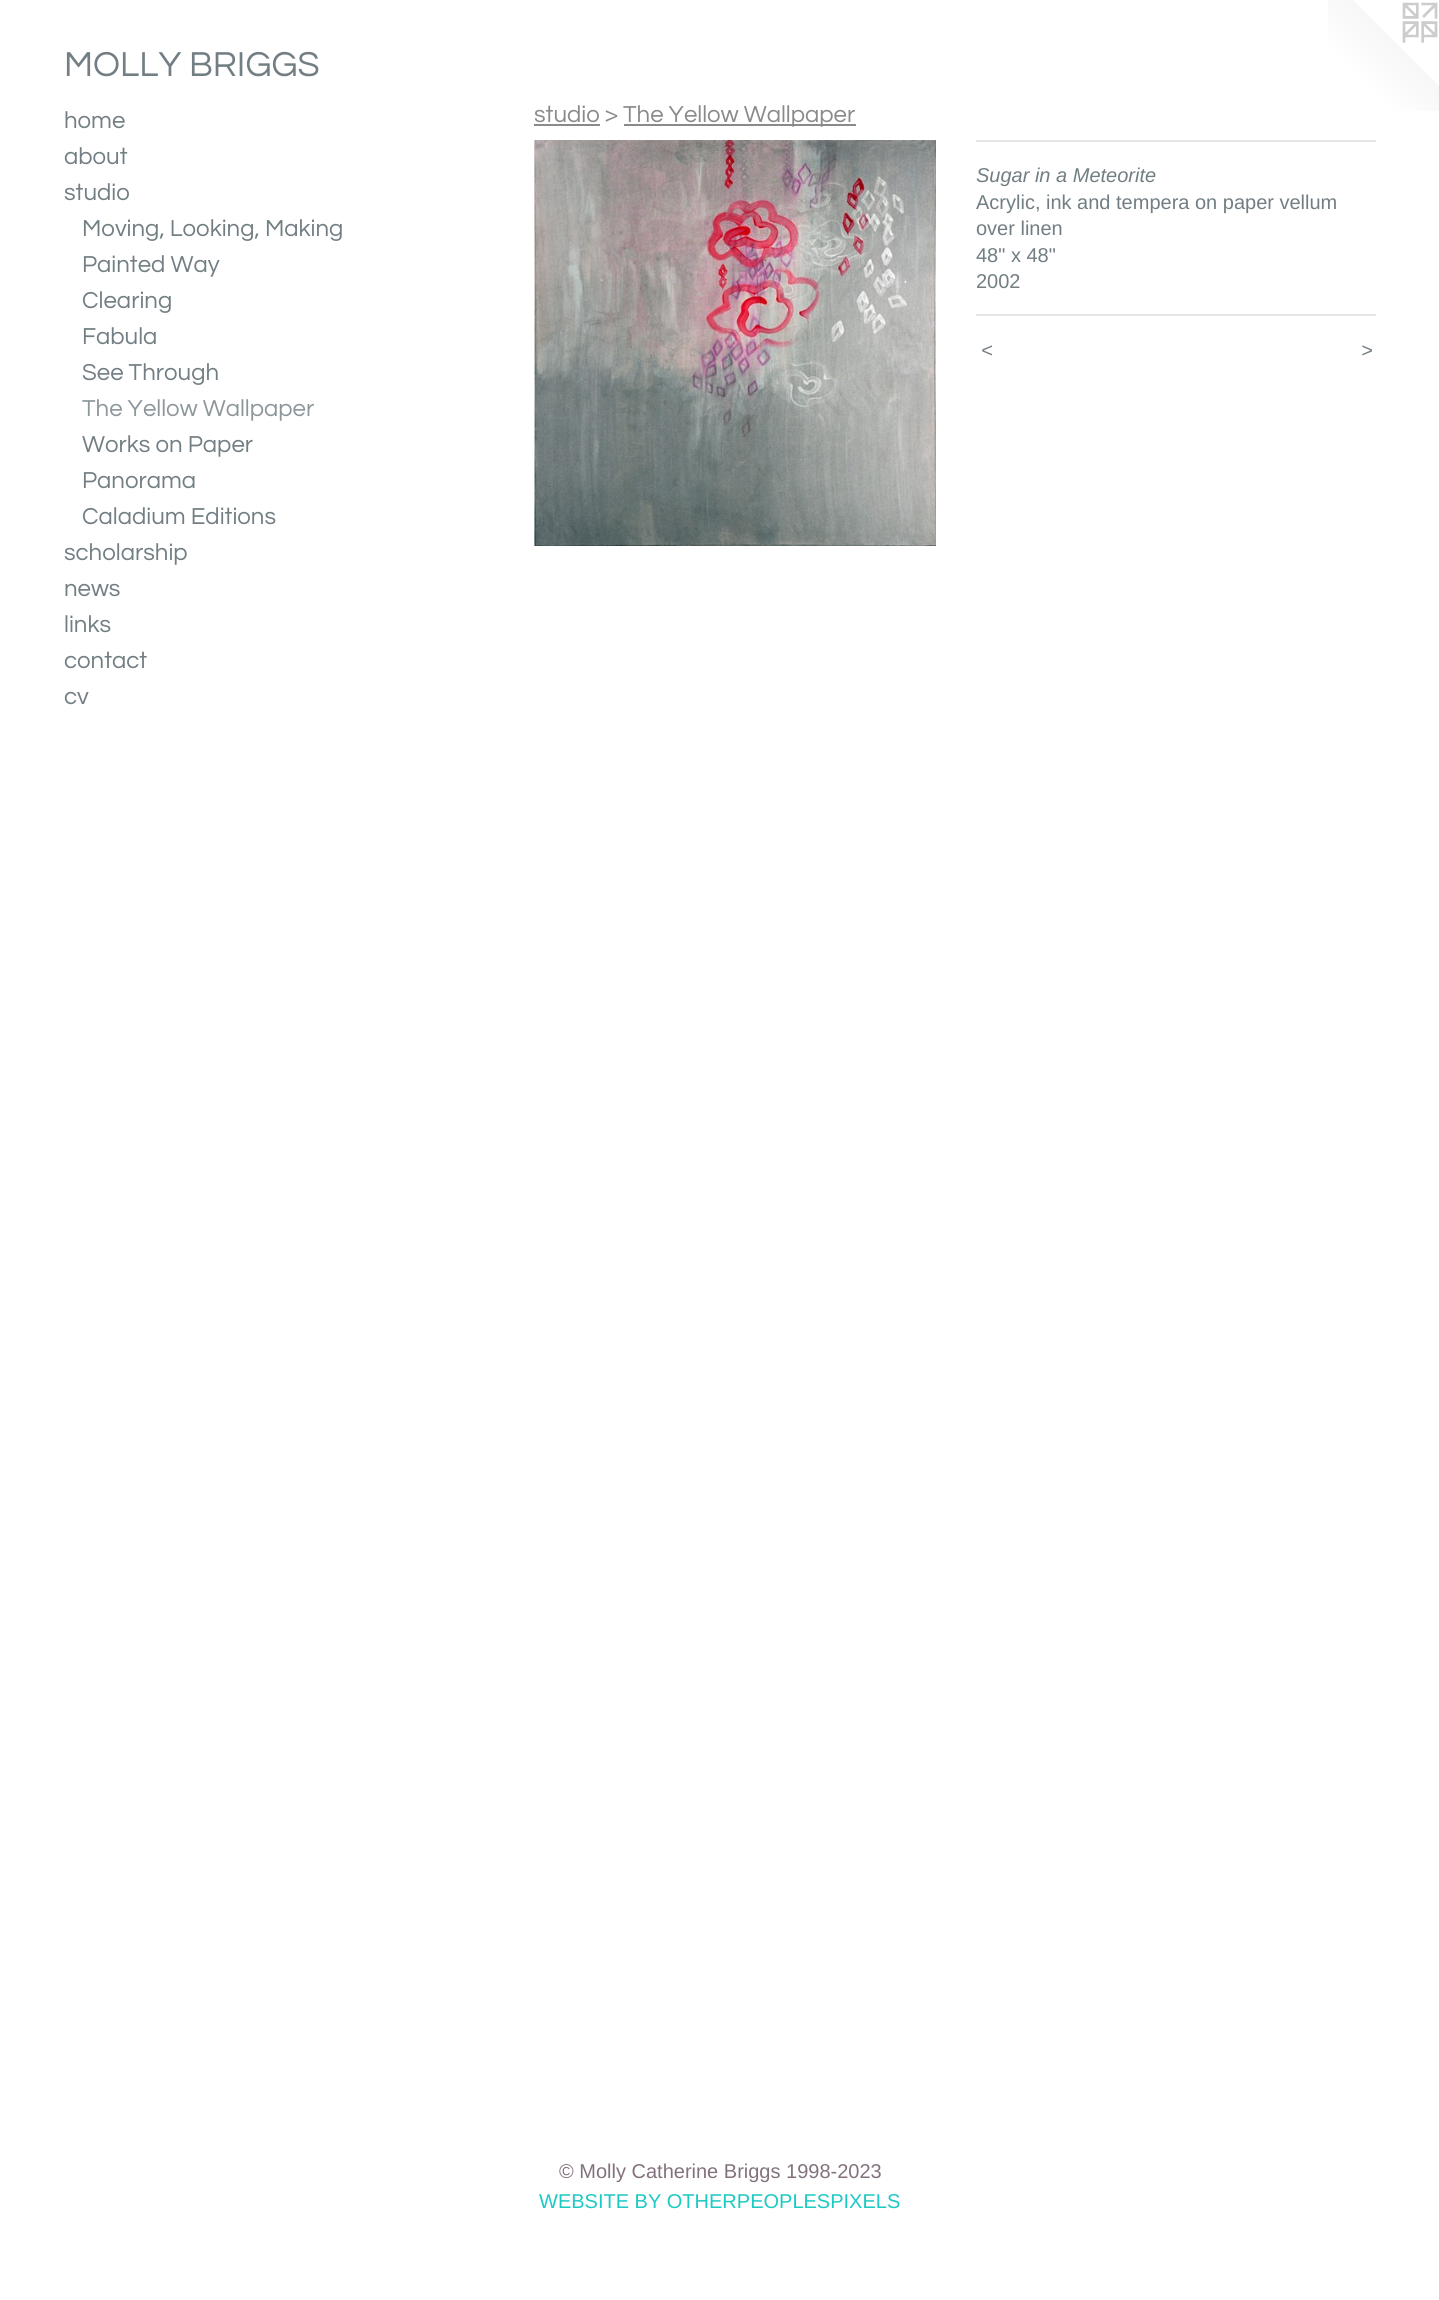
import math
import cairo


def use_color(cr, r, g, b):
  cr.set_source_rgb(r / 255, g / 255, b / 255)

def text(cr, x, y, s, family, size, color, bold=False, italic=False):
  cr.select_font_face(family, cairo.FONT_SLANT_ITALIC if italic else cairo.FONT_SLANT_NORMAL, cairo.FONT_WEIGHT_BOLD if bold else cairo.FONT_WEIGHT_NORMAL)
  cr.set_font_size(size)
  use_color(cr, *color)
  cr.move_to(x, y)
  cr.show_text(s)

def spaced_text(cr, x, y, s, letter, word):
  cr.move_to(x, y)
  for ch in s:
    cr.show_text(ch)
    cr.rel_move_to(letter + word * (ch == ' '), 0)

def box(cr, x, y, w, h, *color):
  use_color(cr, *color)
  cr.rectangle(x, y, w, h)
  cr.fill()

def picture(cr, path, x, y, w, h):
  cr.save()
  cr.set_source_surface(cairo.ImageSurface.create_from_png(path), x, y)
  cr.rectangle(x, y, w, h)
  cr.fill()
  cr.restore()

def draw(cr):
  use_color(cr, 255, 255, 255)
  cr.paint()
  picture(cr, "img_01.png", 1328, 0, 111, 111)
  box(cr, 534, 124, 66, 2, 138, 138, 138)
  box(cr, 624, 124, 232, 2, 138, 138, 138)
  picture(cr, "img_02.png", 534, 140, 402, 406)
  box(cr, 976, 140, 400, 2, 227, 229, 230)
  box(cr, 976, 314, 400, 2, 227, 229, 230)
  text(cr, 64, 76, "MOLLY BRIGGS", "Questrial", 36, (114, 126, 131))
  text(cr, 64, 128, "home", "Questrial", 24, (114, 126, 131))
  text(cr, 64, 164, "about", "Questrial", 24, (114, 126, 131))
  text(cr, 64, 200, "studio", "Questrial", 24, (114, 126, 131))
  text(cr, 82, 236, "Moving, Looking, Making", "Questrial", 24, (114, 126, 131))
  text(cr, 82, 272, "Painted Way", "Questrial", 24, (114, 126, 131))
  text(cr, 82, 308, "Clearing", "Questrial", 24, (114, 126, 131))
  text(cr, 82, 344, "Fabula", "Questrial", 24, (114, 126, 131))
  text(cr, 82, 380, "See Through", "Questrial", 24, (114, 126, 131))
  text(cr, 82, 416, "The Yellow Wallpaper", "Questrial", 24, (141, 151, 155))
  text(cr, 82, 452, "Works on Paper", "Questrial", 24, (114, 126, 131))
  text(cr, 82, 488, "Panorama", "Questrial", 24, (114, 126, 131))
  text(cr, 82, 524, "Caladium Editions", "Questrial", 24, (114, 126, 131))
  text(cr, 64, 560, "scholarship", "Questrial", 24, (114, 126, 131))
  text(cr, 64, 596, "news", "Questrial", 24, (114, 126, 131))
  text(cr, 64, 632, "links", "Questrial", 24, (114, 126, 131))
  text(cr, 64, 668, "contact", "Questrial", 24, (114, 126, 131))
  text(cr, 64, 704, "cv", "Questrial", 24, (114, 126, 131))
  text(cr, 534, 122, "studio >", "Questrial", 24, (138, 138, 138))
  text(cr, 623, 122, "The Yellow Wallpaper", "Questrial", 24, (138, 138, 138))
  text(cr, 976, 182, "Sugar in a Meteorite", "Liberation Sans", 20, (114, 126, 131), italic=True)
  text(cr, 976, 209, "Acrylic, ink and tempera on paper vellum", "Liberation Sans", 20, (114, 126, 131))
  text(cr, 976, 235, "over linen", "Liberation Sans", 20, (114, 126, 131))
  text(cr, 976, 262, "48\" x 48\"", "Liberation Sans", 20, (114, 126, 131))
  text(cr, 976, 288, "2002", "Liberation Sans", 20, (114, 126, 131))
  cr.select_font_face("Liberation Sans", cairo.FONT_SLANT_ITALIC)
  spaced_text(cr, 981, 357, "<", 2, 0)
  spaced_text(cr, 1361, 357, ">", 2, 0)
  text(cr, 559, 2178, "© Molly Catherine Briggs 1998-2023", "Liberation Sans", 20, (131, 114, 126))
  text(cr, 539, 2208, "WEBSITE BY OTHERPEOPLESPIXELS", "Liberation Sans", 20, (29, 201, 195))


surface = cairo.ImageSurface(cairo.FORMAT_RGB24, 1439, 2300)
cr = cairo.Context(surface)
options = cairo.FontOptions()
options.set_hint_metrics(cairo.HINT_METRICS_OFF)
options.set_hint_style(cairo.HINT_STYLE_NONE)
cr.set_font_options(options)
cr.set_miter_limit(4)
draw(cr)
surface.write_to_png("out.png")
